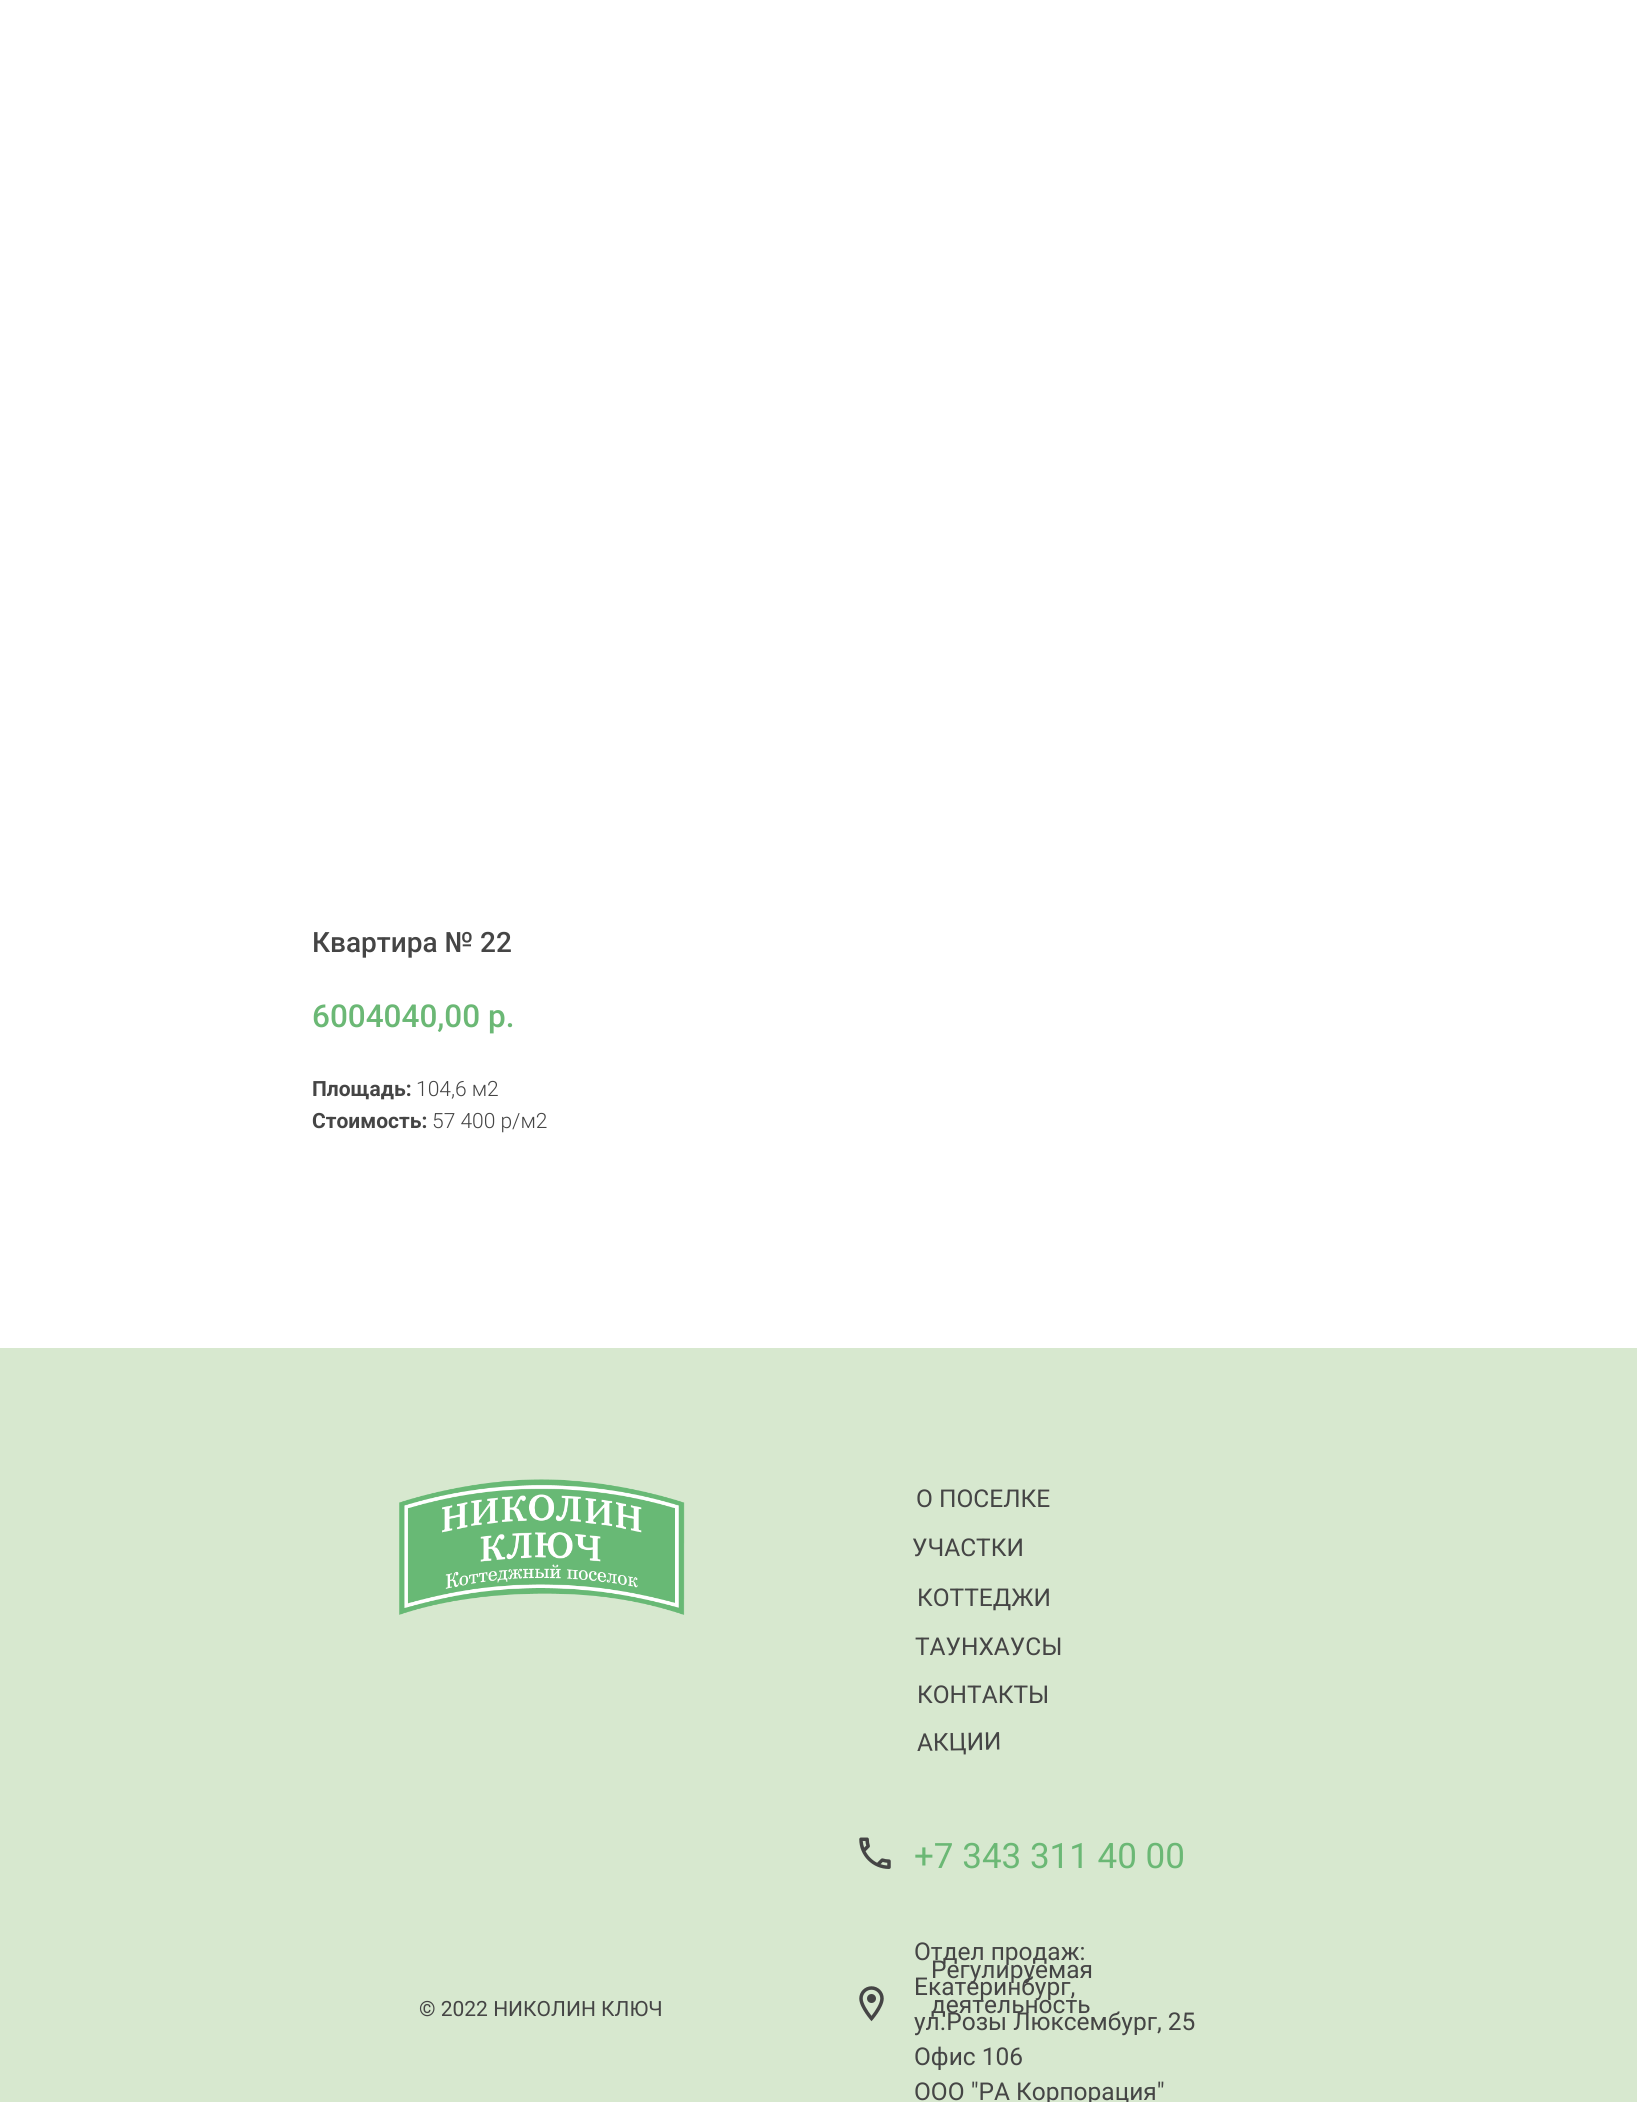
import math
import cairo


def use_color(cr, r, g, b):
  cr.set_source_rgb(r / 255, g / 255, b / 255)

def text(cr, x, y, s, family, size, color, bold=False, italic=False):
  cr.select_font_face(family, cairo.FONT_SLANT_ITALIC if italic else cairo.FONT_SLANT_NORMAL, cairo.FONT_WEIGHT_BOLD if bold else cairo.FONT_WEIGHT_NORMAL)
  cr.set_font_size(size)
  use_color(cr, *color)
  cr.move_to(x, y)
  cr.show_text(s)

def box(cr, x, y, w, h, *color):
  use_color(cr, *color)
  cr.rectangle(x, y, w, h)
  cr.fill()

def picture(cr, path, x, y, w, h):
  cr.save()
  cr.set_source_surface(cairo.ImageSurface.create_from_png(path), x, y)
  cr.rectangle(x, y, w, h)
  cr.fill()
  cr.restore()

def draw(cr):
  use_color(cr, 255, 255, 255)
  cr.paint()
  box(cr, 0, 1348, 1637, 754, 215, 232, 207)
  picture(cr, "img_01.png", 399, 1479, 286, 136)
  picture(cr, "img_02.png", 859, 1837, 32, 32)
  picture(cr, "img_03.png", 859, 1986, 25, 36)
  text(cr, 312, 952, "Квартира № 22", "Roboto Medium", 28, (69, 69, 69))
  text(cr, 312, 1027, "6004040,00", "Roboto Medium", 31.5, (107, 184, 117))
  text(cr, 488, 1027, "р.", "Roboto Medium", 31.5, (107, 184, 117))
  text(cr, 312, 1096, "Площадь:", "Roboto", 21, (69, 69, 69), bold=True)
  text(cr, 416, 1096, "104,6 м2", "Roboto Light", 21, (69, 69, 69))
  text(cr, 312, 1128, "Стоимость:", "Roboto", 21, (69, 69, 69), bold=True)
  text(cr, 432, 1128, "57 400 р/м2", "Roboto Light", 21, (69, 69, 69))
  text(cr, 916, 1507, "О ПОСЕЛКЕ", "Roboto", 24.5, (69, 69, 69))
  text(cr, 912, 1556, "УЧАСТКИ", "Roboto", 24.5, (69, 69, 69))
  text(cr, 917, 1606, "КОТТЕДЖИ", "Roboto", 24.5, (69, 69, 69))
  text(cr, 915, 1655, "ТАУНХАУСЫ", "Roboto", 24.5, (69, 69, 69))
  text(cr, 917, 1703, "КОНТАКТЫ", "Roboto", 24.5, (69, 69, 69))
  cr.save()
  cr.translate(917, 1751)
  cr.rotate(-1 * math.pi / 180)
  text(cr, 0, 0, "АКЦИИ", "Roboto", 24.5, (69, 69, 69))
  cr.restore()
  text(cr, 914, 1868, "+7 343 311 40 00", "Roboto", 35, (107, 184, 117))
  text(cr, 914, 1960, "Отдел продаж:", "Roboto", 24.5, (69, 69, 69))
  text(cr, 914, 1995, "Екатеринбург,", "Roboto", 24.5, (69, 69, 69))
  text(cr, 914, 2030, "ул.Розы Люксембург, 25", "Roboto", 24.5, (69, 69, 69))
  text(cr, 914, 2065, "Офис 106", "Roboto", 24.5, (69, 69, 69))
  text(cr, 914, 2100, "ООО \"РА Корпорация\"", "Roboto", 24.5, (69, 69, 69))
  text(cr, 419, 2016, "© 2022 НИКОЛИН КЛЮЧ", "Roboto", 21, (69, 69, 69))
  text(cr, 931, 1978, "Регулируемая", "Roboto", 24.5, (69, 69, 69))
  text(cr, 931, 2013, "деятельность", "Roboto", 24.5, (69, 69, 69))


surface = cairo.ImageSurface(cairo.FORMAT_RGB24, 1637, 2102)
cr = cairo.Context(surface)
options = cairo.FontOptions()
options.set_hint_metrics(cairo.HINT_METRICS_OFF)
options.set_hint_style(cairo.HINT_STYLE_NONE)
cr.set_font_options(options)
cr.set_miter_limit(4)
draw(cr)
surface.write_to_png("out.png")
